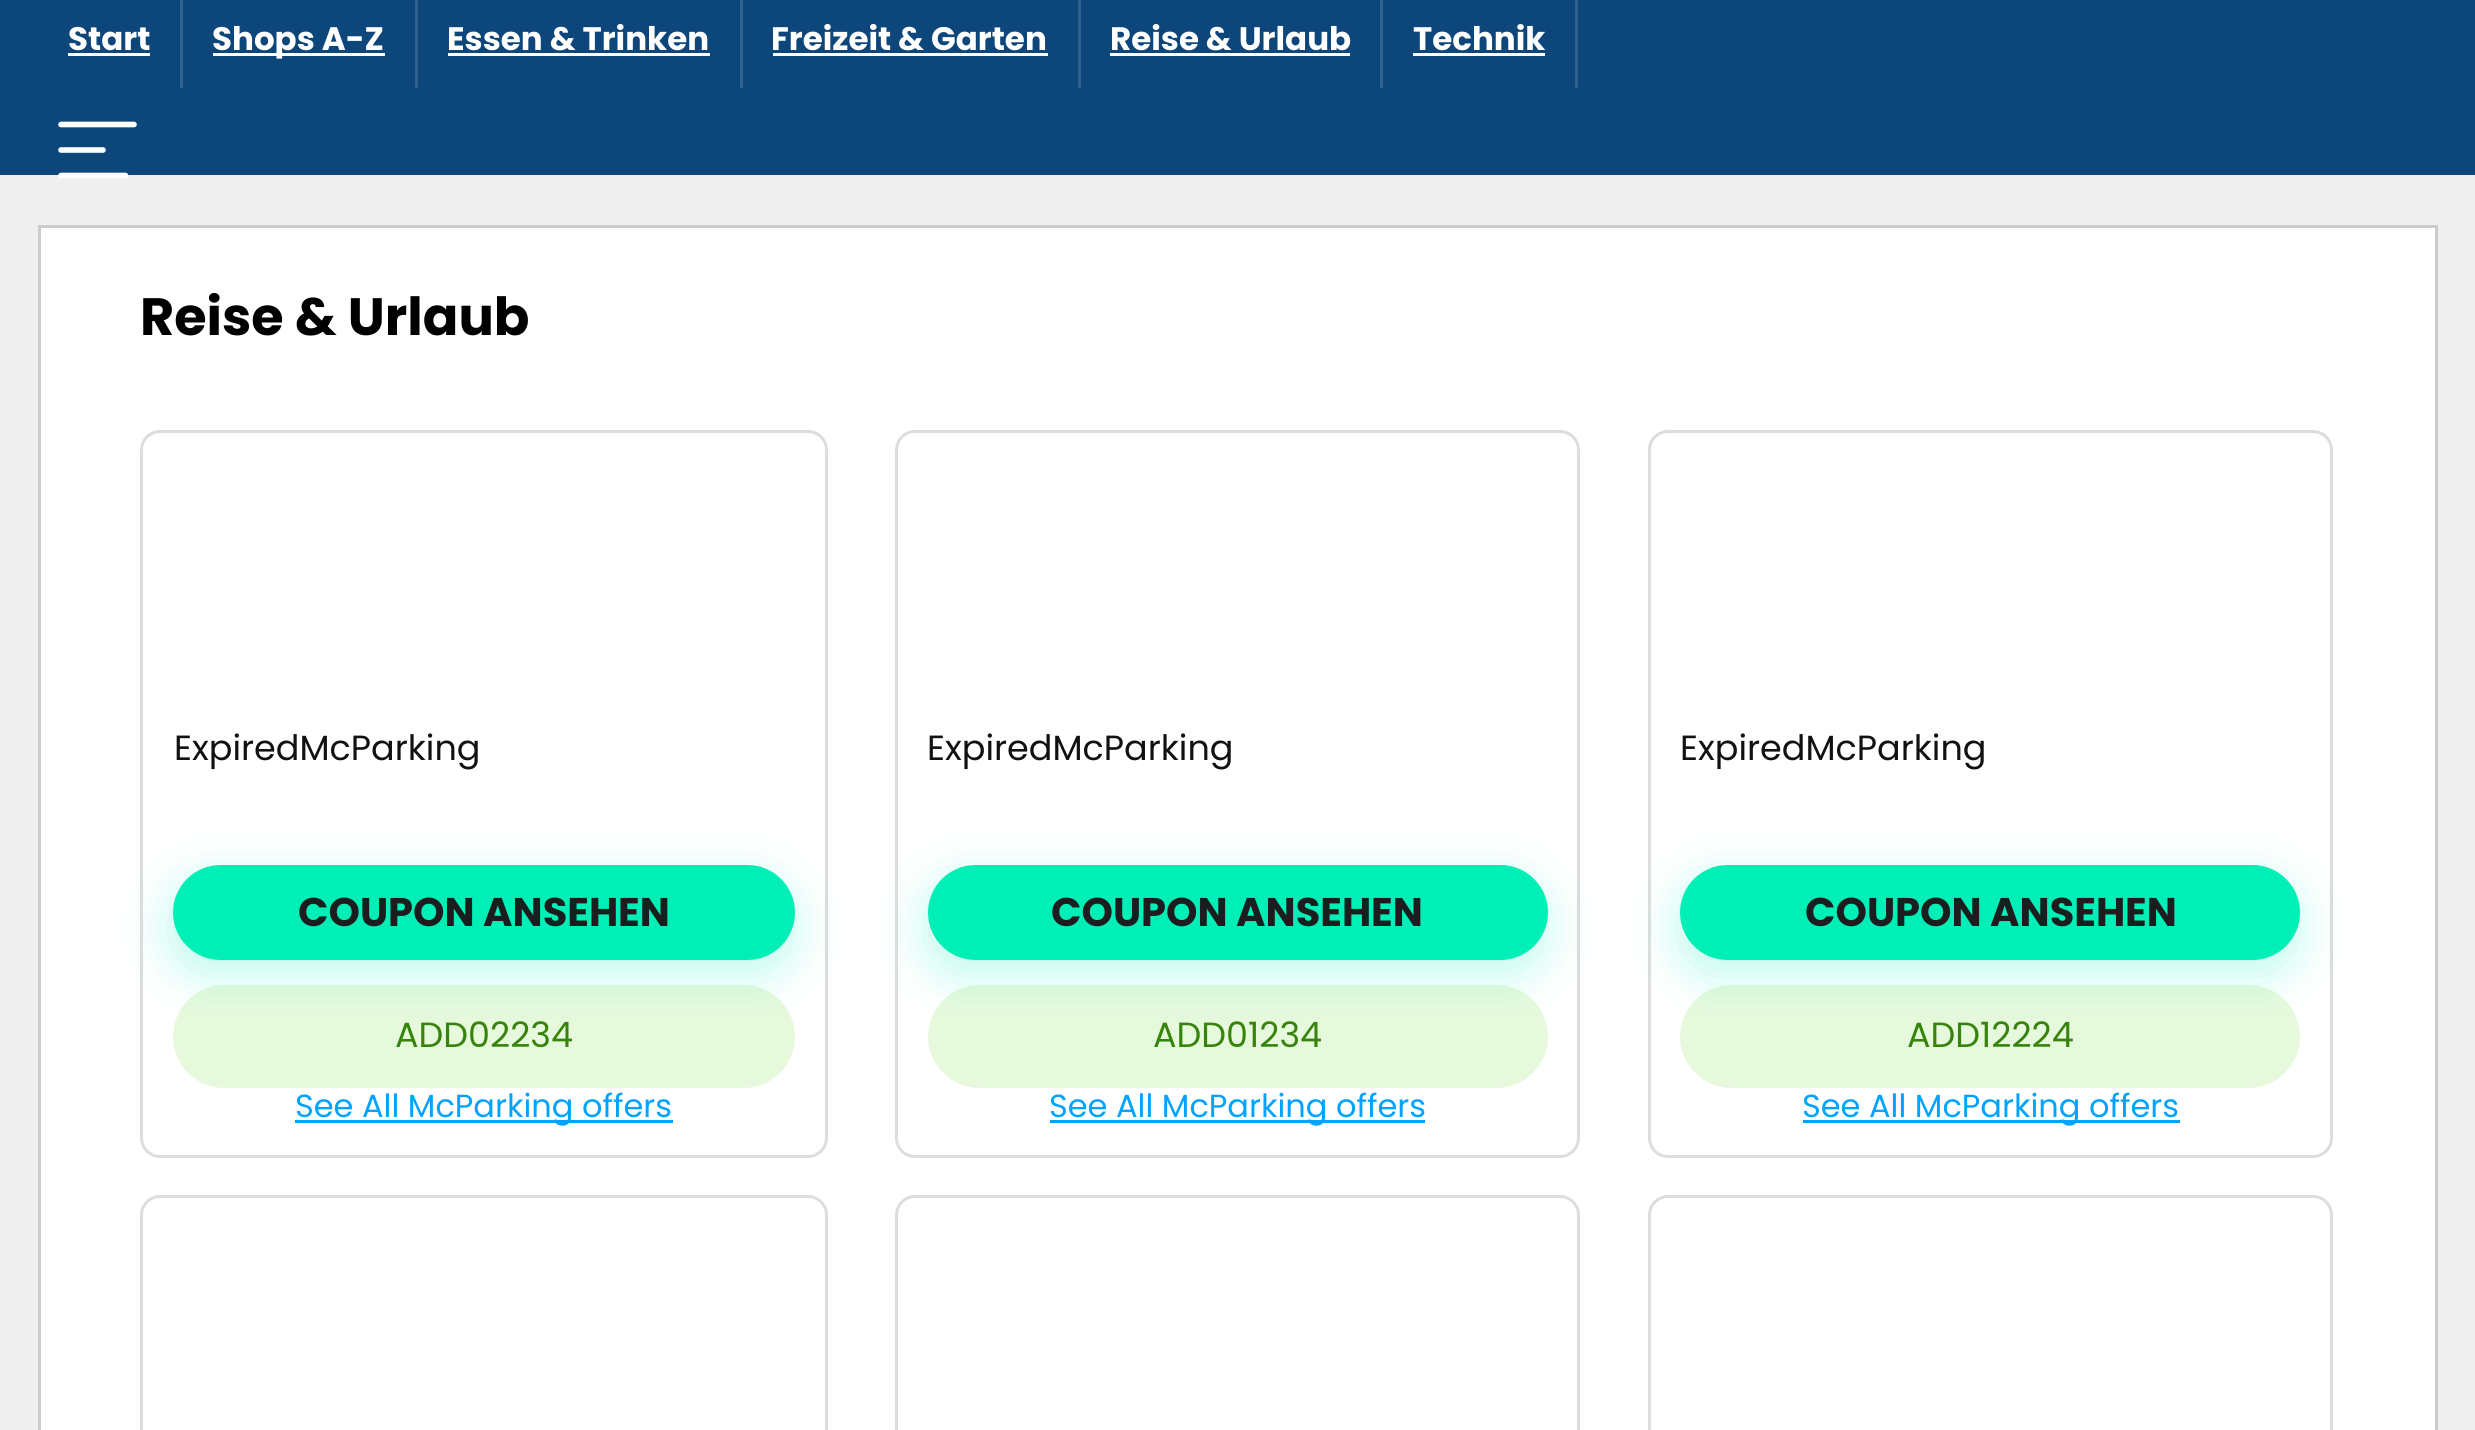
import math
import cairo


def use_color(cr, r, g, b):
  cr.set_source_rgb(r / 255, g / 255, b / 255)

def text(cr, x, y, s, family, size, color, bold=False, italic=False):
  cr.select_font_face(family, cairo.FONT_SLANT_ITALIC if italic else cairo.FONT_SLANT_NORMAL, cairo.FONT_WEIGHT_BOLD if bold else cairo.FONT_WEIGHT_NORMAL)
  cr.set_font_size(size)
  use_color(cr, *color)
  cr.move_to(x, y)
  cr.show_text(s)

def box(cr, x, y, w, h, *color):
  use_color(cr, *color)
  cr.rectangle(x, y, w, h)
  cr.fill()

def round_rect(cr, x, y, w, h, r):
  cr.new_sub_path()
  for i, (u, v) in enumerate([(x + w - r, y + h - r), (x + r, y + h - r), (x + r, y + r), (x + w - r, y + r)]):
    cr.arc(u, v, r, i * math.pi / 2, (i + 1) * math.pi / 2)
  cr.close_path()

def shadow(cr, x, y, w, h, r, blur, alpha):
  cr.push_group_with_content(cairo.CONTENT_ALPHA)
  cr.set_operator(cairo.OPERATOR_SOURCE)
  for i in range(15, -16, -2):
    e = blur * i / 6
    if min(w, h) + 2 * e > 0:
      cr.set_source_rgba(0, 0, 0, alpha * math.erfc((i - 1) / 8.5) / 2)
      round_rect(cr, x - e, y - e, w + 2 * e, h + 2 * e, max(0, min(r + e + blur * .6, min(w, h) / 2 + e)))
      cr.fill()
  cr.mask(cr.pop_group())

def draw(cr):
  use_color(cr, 239, 239, 239)
  cr.paint()
  box(cr, 0, 0, 2475, 175, 12, 70, 122)
  box(cr, 180, 0, 3, 88, 48, 98, 142)
  box(cr, 68, 53, 82, 3, 255, 255, 255)
  box(cr, 415, 0, 3, 88, 48, 98, 142)
  box(cr, 213, 53, 172, 3, 255, 255, 255)
  box(cr, 740, 0, 3, 88, 48, 98, 142)
  box(cr, 448, 53, 262, 3, 255, 255, 255)
  box(cr, 1078, 0, 3, 88, 48, 98, 142)
  box(cr, 773, 53, 275, 3, 255, 255, 255)
  box(cr, 1380, 0, 3, 88, 48, 98, 142)
  box(cr, 1110, 53, 240, 3, 255, 255, 255)
  box(cr, 1575, 0, 3, 88, 48, 98, 142)
  box(cr, 1413, 53, 132, 3, 255, 255, 255)
  cr.new_path()
  cr.move_to(61, 124.5)
  cr.line_to(134, 124.5)
  cr.set_line_width(5.6)
  cr.set_line_cap(cairo.LINE_CAP_ROUND)
  cr.stroke()
  cr.new_path()
  cr.move_to(61, 150)
  cr.line_to(103, 150)
  cr.stroke()
  cr.new_path()
  cr.move_to(61, 175.5)
  cr.line_to(125.5, 175.5)
  cr.stroke()
  cr.rectangle(39.5, 226.5, 2397, 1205)
  cr.fill_preserve()
  use_color(cr, 204, 204, 204)
  cr.set_line_width(3)
  cr.set_line_cap(cairo.LINE_CAP_BUTT)
  cr.stroke()
  round_rect(cr, 141.5, 431.5, 685, 725, 18.5)
  use_color(cr, 221, 221, 221)
  cr.stroke()
  use_color(cr, 231, 249, 221)
  round_rect(cr, 173, 985, 622, 103, 51.5)
  cr.fill()
  use_color(cr, 0, 239, 183)
  shadow(cr, 170, 880, 623, 95, 47.5, 24, 0.25)
  use_color(cr, 0, 239, 183)
  round_rect(cr, 173, 865, 622, 95, 47.5)
  cr.fill()
  box(cr, 295, 1120, 378, 3, 0, 163, 255)
  round_rect(cr, 896.5, 431.5, 682, 725, 18.5)
  use_color(cr, 221, 221, 221)
  cr.stroke()
  use_color(cr, 231, 249, 221)
  round_rect(cr, 928, 985, 620, 103, 51.5)
  cr.fill()
  use_color(cr, 0, 239, 183)
  shadow(cr, 925, 880, 620, 95, 47.5, 24, 0.25)
  use_color(cr, 0, 239, 183)
  round_rect(cr, 928, 865, 620, 95, 47.5)
  cr.fill()
  box(cr, 1050, 1120, 375, 3, 0, 163, 255)
  round_rect(cr, 1649.5, 431.5, 682, 725, 18.5)
  use_color(cr, 221, 221, 221)
  cr.stroke()
  use_color(cr, 231, 249, 221)
  round_rect(cr, 1680, 985, 620, 103, 51.5)
  cr.fill()
  use_color(cr, 0, 239, 183)
  shadow(cr, 1678, 880, 620, 95, 47.5, 24, 0.25)
  use_color(cr, 0, 239, 183)
  round_rect(cr, 1680, 865, 620, 95, 47.5)
  cr.fill()
  box(cr, 1803, 1120, 377, 3, 0, 163, 255)
  round_rect(cr, 141.5, 1196.5, 685, 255, 18.5)
  use_color(cr, 221, 221, 221)
  cr.stroke()
  round_rect(cr, 896.5, 1196.5, 682, 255, 18.5)
  cr.stroke()
  round_rect(cr, 1649.5, 1196.5, 682, 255, 18.5)
  cr.stroke()
  text(cr, 68, 50, "Start", "Poppins", 32.5, (255, 255, 255), bold=True)
  text(cr, 212, 50, "Shops A-Z", "Poppins", 32.5, (255, 255, 255), bold=True)
  text(cr, 447, 50, "Essen & Trinken", "Poppins", 32.5, (255, 255, 255), bold=True)
  text(cr, 771, 50, "Freizeit & Garten", "Poppins", 32.5, (255, 255, 255), bold=True)
  text(cr, 1110, 50, "Reise & Urlaub", "Poppins", 32.5, (255, 255, 255), bold=True)
  text(cr, 1413, 50, "Technik", "Poppins", 32.5, (255, 255, 255), bold=True)
  text(cr, 140, 335, "Reise & Urlaub", "Poppins", 52.5, (0, 0, 0), bold=True)
  text(cr, 174, 760, "ExpiredMcParking", "Poppins", 35, (17, 17, 17))
  text(cr, 298, 926, "COUPON ANSEHEN", "Poppins", 40, (28, 29, 31), bold=True)
  text(cr, 395, 1047, "ADD02234", "Poppins", 35, (55, 132, 13))
  text(cr, 295, 1117, "See All McParking offers", "Poppins", 32, (0, 163, 255))
  text(cr, 927, 760, "ExpiredMcParking", "Poppins", 35, (17, 17, 17))
  text(cr, 1051, 926, "COUPON ANSEHEN", "Poppins", 40, (28, 29, 31), bold=True)
  text(cr, 1153, 1047, "ADD01234", "Poppins", 35, (55, 132, 13))
  text(cr, 1049, 1117, "See All McParking offers", "Poppins", 32, (0, 163, 255))
  text(cr, 1680, 760, "ExpiredMcParking", "Poppins", 35, (17, 17, 17))
  text(cr, 1805, 926, "COUPON ANSEHEN", "Poppins", 40, (28, 29, 31), bold=True)
  text(cr, 1907, 1047, "ADD12224", "Poppins", 35, (55, 132, 13))
  text(cr, 1802, 1117, "See All McParking offers", "Poppins", 32, (0, 163, 255))


surface = cairo.ImageSurface(cairo.FORMAT_RGB24, 2475, 1430)
cr = cairo.Context(surface)
options = cairo.FontOptions()
options.set_hint_metrics(cairo.HINT_METRICS_OFF)
options.set_hint_style(cairo.HINT_STYLE_NONE)
cr.set_font_options(options)
cr.set_miter_limit(4)
draw(cr)
surface.write_to_png("out.png")
